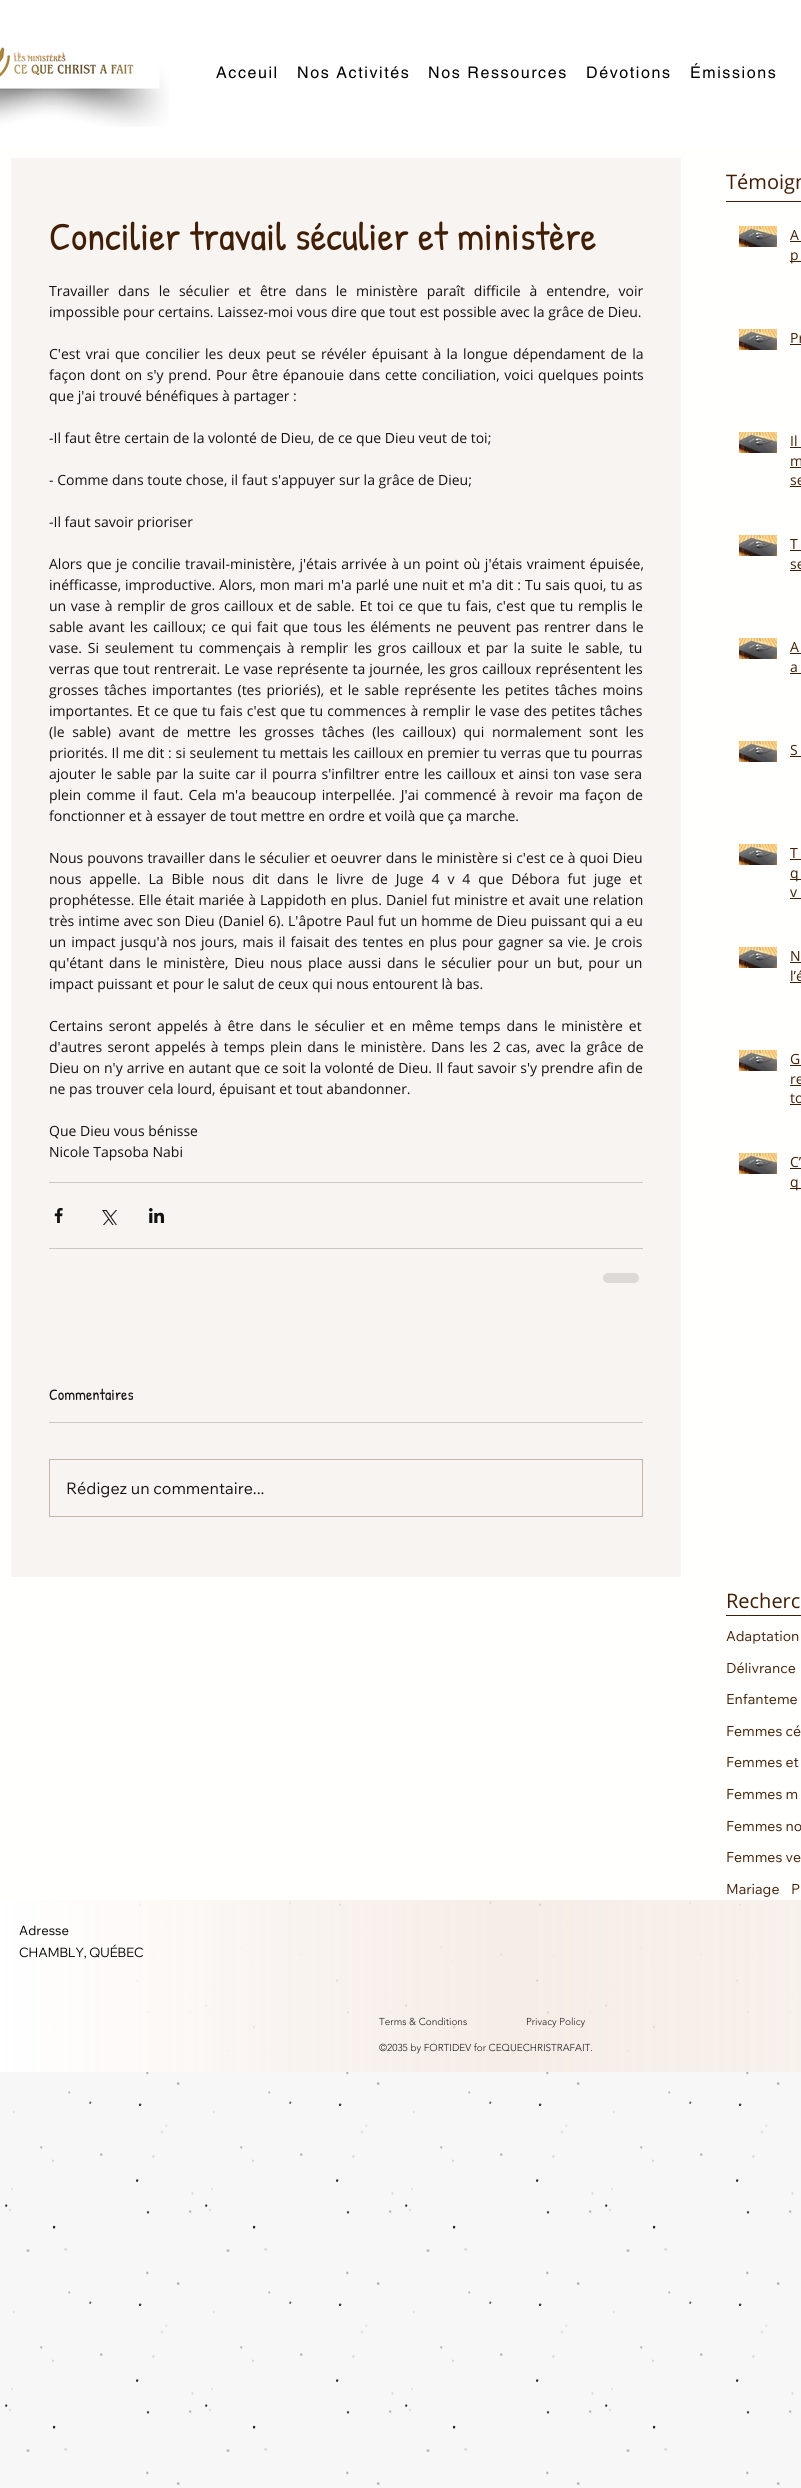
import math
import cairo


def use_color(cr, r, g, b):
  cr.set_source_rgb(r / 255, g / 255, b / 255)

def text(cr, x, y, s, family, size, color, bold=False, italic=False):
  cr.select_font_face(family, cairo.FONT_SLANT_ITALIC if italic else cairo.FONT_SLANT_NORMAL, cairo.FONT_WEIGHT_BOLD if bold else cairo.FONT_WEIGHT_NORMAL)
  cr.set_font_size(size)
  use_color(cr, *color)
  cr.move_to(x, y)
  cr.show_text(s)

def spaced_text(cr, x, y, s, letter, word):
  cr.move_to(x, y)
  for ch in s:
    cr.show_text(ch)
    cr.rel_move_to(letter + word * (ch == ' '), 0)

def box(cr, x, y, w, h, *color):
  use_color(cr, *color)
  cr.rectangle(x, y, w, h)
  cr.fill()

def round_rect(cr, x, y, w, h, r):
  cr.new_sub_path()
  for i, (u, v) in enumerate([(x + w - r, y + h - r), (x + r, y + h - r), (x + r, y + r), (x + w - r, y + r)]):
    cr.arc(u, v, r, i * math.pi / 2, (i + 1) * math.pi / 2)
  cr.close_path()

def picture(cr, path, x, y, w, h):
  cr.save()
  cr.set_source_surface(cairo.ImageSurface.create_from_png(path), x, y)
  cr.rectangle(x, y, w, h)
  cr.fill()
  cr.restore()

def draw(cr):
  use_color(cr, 247, 247, 247)
  cr.paint()
  box(cr, 0, 0, 801, 147, 255, 255, 255)
  picture(cr, "img_01.png", 0, 47, 169, 80)
  box(cr, 0, 147, 801, 1753, 255, 255, 254)
  box(cr, 726, 201, 75, 1, 65, 30, 6)
  box(cr, 11, 158, 670, 1419, 248, 244, 241)
  box(cr, 49, 1182, 594, 1, 202, 199, 196)
  picture(cr, "img_02.png", 54, 1208, 9, 15)
  picture(cr, "img_03.png", 102, 1210, 15, 15)
  picture(cr, "img_04.png", 149, 1208, 15, 15)
  box(cr, 49, 1248, 594, 1, 202, 199, 196)
  use_color(cr, 220, 217, 214)
  round_rect(cr, 603, 1273, 36, 10, 5)
  cr.fill()
  box(cr, 49, 1422, 594, 1, 202, 199, 196)
  cr.rectangle(49.5, 1459.5, 593, 57)
  use_color(cr, 193, 180, 171)
  cr.set_line_width(1)
  cr.stroke()
  picture(cr, "img_05.png", 739, 226, 38, 21)
  box(cr, 790, 241, 11, 1, 65, 30, 6)
  box(cr, 790, 261, 11, 1, 65, 30, 6)
  picture(cr, "img_05.png", 739, 329, 38, 21)
  box(cr, 790, 344, 11, 1, 65, 30, 6)
  picture(cr, "img_05.png", 739, 432, 38, 21)
  box(cr, 790, 447, 11, 1, 65, 30, 6)
  box(cr, 790, 467, 11, 1, 65, 30, 6)
  box(cr, 790, 486, 11, 1, 65, 30, 6)
  picture(cr, "img_05.png", 739, 535, 38, 21)
  box(cr, 790, 550, 11, 1, 65, 30, 6)
  box(cr, 790, 570, 11, 1, 65, 30, 6)
  picture(cr, "img_05.png", 739, 638, 38, 21)
  box(cr, 790, 653, 11, 1, 65, 30, 6)
  box(cr, 790, 673, 11, 1, 65, 30, 6)
  picture(cr, "img_05.png", 739, 741, 38, 21)
  box(cr, 790, 756, 11, 1, 65, 30, 6)
  picture(cr, "img_05.png", 739, 844, 38, 21)
  box(cr, 790, 859, 11, 1, 65, 30, 6)
  box(cr, 790, 879, 11, 1, 65, 30, 6)
  box(cr, 790, 898, 11, 1, 65, 30, 6)
  picture(cr, "img_05.png", 739, 947, 38, 21)
  box(cr, 790, 962, 11, 1, 65, 30, 6)
  box(cr, 790, 982, 11, 1, 65, 30, 6)
  picture(cr, "img_05.png", 739, 1050, 38, 21)
  box(cr, 790, 1065, 11, 1, 65, 30, 6)
  box(cr, 790, 1085, 11, 1, 65, 30, 6)
  box(cr, 790, 1104, 11, 1, 65, 30, 6)
  picture(cr, "img_05.png", 739, 1153, 38, 21)
  box(cr, 790, 1168, 11, 1, 65, 30, 6)
  box(cr, 790, 1188, 11, 1, 65, 30, 6)
  box(cr, 726, 1615, 75, 1, 65, 30, 6)
  picture(cr, "img_06.png", 5, 1901, 789, 584)
  gradient = cairo.LinearGradient(0, 1986, 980, 1986)
  gradient.add_color_stop_rgba(0, 1, 1, 1, 1)
  gradient.add_color_stop_rgba(0.39, 0.973, 0.941, 0.922, 0.89)
  gradient.add_color_stop_rgba(0.51, 0.965, 0.922, 0.894, 0.86)
  gradient.add_color_stop_rgba(1, 0.973, 0.957, 0.945, 1)
  cr.set_source(gradient)
  cr.rectangle(0, 1900, 801, 172)
  cr.fill()
  cr.select_font_face("helvetica")
  cr.set_font_size(16)
  use_color(cr, 0, 0, 0)
  spaced_text(cr, 216, 78, "Acceuil", 1.6, 0)
  spaced_text(cr, 297, 78, "Nos Activités", 1.6, 0)
  spaced_text(cr, 428, 78, "Nos Ressources", 1.6, 0)
  spaced_text(cr, 586, 78, "Dévotions", 1.6, 0)
  spaced_text(cr, 690, 78, "Émissions", 1.6, 0)
  text(cr, 726, 189, "Témoign", "Open Sans", 20, (65, 30, 6))
  text(cr, 49, 250, "Concilier travail séculier et ministère", "Patrick Hand", 40, (65, 30, 6))
  cr.select_font_face("Open Sans")
  cr.set_font_size(14)
  use_color(cr, 18, 18, 18)
  spaced_text(cr, 49, 296, "Travailler dans le séculier et être dans le ministère paraît difficile à entendre, voir", 0, 5.25)
  text(cr, 49, 317, "impossible pour certains. Laissez-moi vous dire que tout est possible avec la grâce de Dieu.", "Open Sans", 14, (18, 18, 18))
  spaced_text(cr, 49, 359, "C'est vrai que concilier les deux peut se révéler épuisant à la longue dépendament de la", 0, 1.6)
  spaced_text(cr, 49, 380, "façon dont on s'y prend. Pour être épanouie dans cette conciliation, voici quelques points", 0, 1)
  text(cr, 49, 401, "que j'ai trouvé bénéfiques à partager :", "Open Sans", 14, (18, 18, 18))
  text(cr, 49, 443, "-Il faut être certain de la volonté de Dieu, de ce que Dieu veut de toi;", "Open Sans", 14, (18, 18, 18))
  text(cr, 49, 485, "- Comme dans toute chose, il faut s'appuyer sur la grâce de Dieu;", "Open Sans", 14, (18, 18, 18))
  text(cr, 49, 527, "-Il faut savoir prioriser", "Open Sans", 14, (18, 18, 18))
  spaced_text(cr, 49, 569, "Alors que je concilie travail-ministère, j'étais arrivée à un point où j'étais vraiment épuisée,", 0, 0.75)
  spaced_text(cr, 49, 590, "inéfficasse, improductive. Alors, mon mari m'a parlé une nuit et m'a dit : Tu sais quoi, tu as", 0, 0.3)
  spaced_text(cr, 49, 611, "un vase à remplir de gros cailloux et de sable. Et toi ce que tu fais, c'est que tu remplis le", 0, 1)
  spaced_text(cr, 49, 632, "sable avant les cailloux; ce qui fait que tous les éléments ne peuvent pas rentrer dans le", 0, 1.5)
  spaced_text(cr, 49, 653, "vase. Si seulement tu commençais à remplir les gros cailloux et par la suite le sable, tu", 0, 2.1)
  spaced_text(cr, 49, 674, "verras que tout rentrerait. Le vase représente ta journée, les gros cailloux représentent les", 0, 0.4)
  spaced_text(cr, 49, 695, "grosses tâches importantes (tes prioriés), et le sable représente les petites tâches moins", 0, 1.75)
  spaced_text(cr, 49, 716, "importantes. Et ce que tu fais c'est que tu commences à remplir le vase des petites tâches", 0, 0.6)
  spaced_text(cr, 49, 737, "(le sable) avant de mettre les grosses tâches (les cailloux) qui normalement sont les", 0, 4.1)
  spaced_text(cr, 49, 758, "priorités. Il me dit : si seulement tu mettais les cailloux en premier tu verras que tu pourras", 0, 0.1)
  spaced_text(cr, 49, 779, "ajouter le sable par la suite car il pourra s'infiltrer entre les cailloux et ainsi ton vase sera", 0, 1.1)
  spaced_text(cr, 49, 800, "plein comme il faut. Cela m'a beaucoup interpellée. J'ai commencé à revoir ma façon de", 0, 1.75)
  text(cr, 49, 821, "fonctionner et à essayer de tout mettre en ordre et voilà que ça marche.", "Open Sans", 14, (18, 18, 18))
  spaced_text(cr, 49, 863, "Nous pouvons travailler dans le séculier et oeuvrer dans le ministère si c'est ce à quoi Dieu", 0, 0.25)
  spaced_text(cr, 49, 884, "nous appelle. La Bible nous dit dans le livre de Juge 4 v 4 que Débora fut juge et", 0, 4.25)
  spaced_text(cr, 49, 905, "prophétesse. Elle était mariée à Lappidoth en plus. Daniel fut ministre et avait une relation", 0, 0.4)
  spaced_text(cr, 49, 926, "très intime avec son Dieu (Daniel 6). L'âpotre Paul fut un homme de Dieu puissant qui a eu", 0, 0.3)
  spaced_text(cr, 49, 947, "un impact jusqu'à nos jours, mais il faisait des tentes en plus pour gagner sa vie. Je crois", 0, 1.3)
  spaced_text(cr, 49, 968, "qu'étant dans le ministère, Dieu nous place aussi dans le séculier pour un but, pour un", 0, 2)
  text(cr, 49, 989, "impact puissant et pour le salut de ceux qui nous entourent là bas.", "Open Sans", 14, (18, 18, 18))
  spaced_text(cr, 49, 1031, "Certains seront appelés à être dans le séculier et en même temps dans le ministère et", 0, 2.25)
  spaced_text(cr, 49, 1052, "d'autres seront appelés à temps plein dans le ministère. Dans les 2 cas, avec la grâce de", 0, 1.5)
  spaced_text(cr, 49, 1073, "Dieu on n'y arrive en autant que ce soit la volonté de Dieu. Il faut savoir s'y prendre afin de", 0, 0.25)
  text(cr, 49, 1094, "ne pas trouver cela lourd, épuisant et tout abandonner.", "Open Sans", 14, (18, 18, 18))
  text(cr, 49, 1136, "Que Dieu vous bénisse", "Open Sans", 14, (18, 18, 18))
  text(cr, 49, 1157, "Nicole Tapsoba Nabi", "Open Sans", 14, (18, 18, 18))
  text(cr, 49, 1400, "Commentaires", "Patrick Hand", 16, (18, 18, 18))
  text(cr, 66, 1494, "Rédigez un commentaire...", "Wix Madefor Text", 16, (18, 18, 18))
  text(cr, 790, 240, "A", "Open Sans", 14, (65, 30, 6))
  text(cr, 790, 260, "p", "Open Sans", 14, (65, 30, 6))
  text(cr, 790, 343, "Pr", "Open Sans", 14, (65, 30, 6))
  text(cr, 790, 446, "Il", "Open Sans", 14, (65, 30, 6))
  text(cr, 790, 466, "m", "Open Sans", 14, (65, 30, 6))
  text(cr, 790, 485, "se", "Open Sans", 14, (65, 30, 6))
  text(cr, 790, 549, "T", "Open Sans", 14, (65, 30, 6))
  text(cr, 790, 569, "se", "Open Sans", 14, (65, 30, 6))
  text(cr, 790, 652, "A", "Open Sans", 14, (65, 30, 6))
  text(cr, 790, 672, "a", "Open Sans", 14, (65, 30, 6))
  text(cr, 790, 755, "S", "Open Sans", 14, (65, 30, 6))
  text(cr, 790, 858, "T", "Open Sans", 14, (65, 30, 6))
  text(cr, 790, 878, "q", "Open Sans", 14, (65, 30, 6))
  text(cr, 790, 897, "v", "Open Sans", 14, (65, 30, 6))
  text(cr, 790, 961, "N", "Open Sans", 14, (65, 30, 6))
  text(cr, 790, 981, "l’é", "Open Sans", 14, (65, 30, 6))
  text(cr, 790, 1064, "G", "Open Sans", 14, (65, 30, 6))
  text(cr, 790, 1084, "re", "Open Sans", 14, (65, 30, 6))
  text(cr, 790, 1103, "to", "Open Sans", 14, (65, 30, 6))
  text(cr, 790, 1167, "C’", "Open Sans", 14, (65, 30, 6))
  text(cr, 790, 1187, "q", "Open Sans", 14, (65, 30, 6))
  text(cr, 726, 1608, "Recherc", "Open Sans", 20, (65, 30, 6))
  text(cr, 726, 1641, "Adaptation", "Wix Madefor Text", 14, (65, 30, 6))
  text(cr, 726, 1673, "Délivrance", "Wix Madefor Text", 14, (65, 30, 6))
  text(cr, 726, 1704, "Enfanteme", "Wix Madefor Text", 14, (65, 30, 6))
  text(cr, 726, 1736, "Femmes cé", "Wix Madefor Text", 14, (65, 30, 6))
  text(cr, 726, 1767, "Femmes et", "Wix Madefor Text", 14, (65, 30, 6))
  text(cr, 726, 1799, "Femmes m", "Wix Madefor Text", 14, (65, 30, 6))
  text(cr, 726, 1831, "Femmes no", "Wix Madefor Text", 14, (65, 30, 6))
  text(cr, 726, 1862, "Femmes ve", "Wix Madefor Text", 14, (65, 30, 6))
  text(cr, 726, 1894, "Mariage", "Wix Madefor Text", 14, (65, 30, 6))
  text(cr, 791, 1894, "P", "Wix Madefor Text", 14, (65, 30, 6))
  text(cr, 19, 1935, "Adresse", "Wix Madefor Text", 13, (0, 0, 0))
  text(cr, 19, 1957, "CHAMBLY, QUÉBEC", "Wix Madefor Display", 13, (0, 0, 0))
  text(cr, 379, 2025, "Terms & Conditions", "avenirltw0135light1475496 Light", 10, (24, 24, 24))
  text(cr, 526, 2025, "Privacy Policy", "avenirltw0135light1475496 Light", 10, (24, 24, 24))
  text(cr, 379, 2051, "©2035 by FORTIDEV for CEQUECHRISTRAFAIT.", "avenirltw0135light1475496 Light", 10, (24, 24, 24))


surface = cairo.ImageSurface(cairo.FORMAT_RGB24, 801, 2488)
cr = cairo.Context(surface)
options = cairo.FontOptions()
options.set_hint_metrics(cairo.HINT_METRICS_OFF)
options.set_hint_style(cairo.HINT_STYLE_NONE)
cr.set_font_options(options)
cr.set_miter_limit(4)
draw(cr)
surface.write_to_png("out.png")
